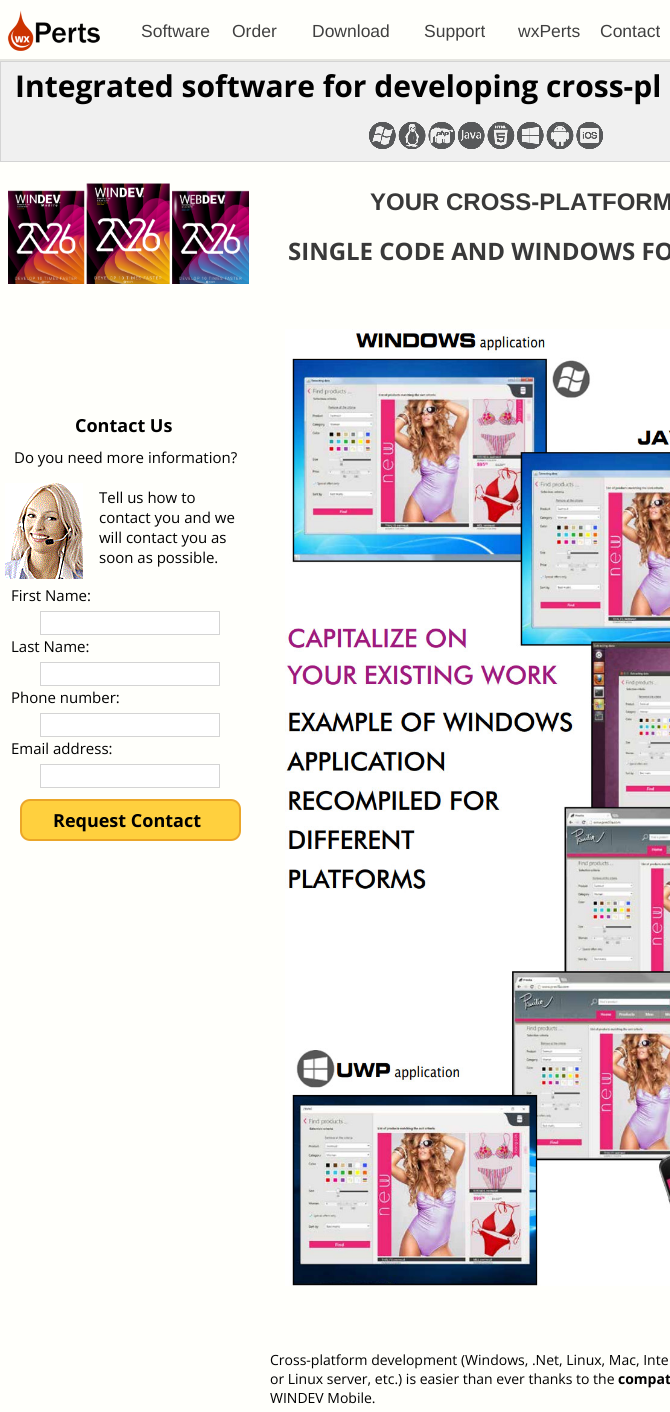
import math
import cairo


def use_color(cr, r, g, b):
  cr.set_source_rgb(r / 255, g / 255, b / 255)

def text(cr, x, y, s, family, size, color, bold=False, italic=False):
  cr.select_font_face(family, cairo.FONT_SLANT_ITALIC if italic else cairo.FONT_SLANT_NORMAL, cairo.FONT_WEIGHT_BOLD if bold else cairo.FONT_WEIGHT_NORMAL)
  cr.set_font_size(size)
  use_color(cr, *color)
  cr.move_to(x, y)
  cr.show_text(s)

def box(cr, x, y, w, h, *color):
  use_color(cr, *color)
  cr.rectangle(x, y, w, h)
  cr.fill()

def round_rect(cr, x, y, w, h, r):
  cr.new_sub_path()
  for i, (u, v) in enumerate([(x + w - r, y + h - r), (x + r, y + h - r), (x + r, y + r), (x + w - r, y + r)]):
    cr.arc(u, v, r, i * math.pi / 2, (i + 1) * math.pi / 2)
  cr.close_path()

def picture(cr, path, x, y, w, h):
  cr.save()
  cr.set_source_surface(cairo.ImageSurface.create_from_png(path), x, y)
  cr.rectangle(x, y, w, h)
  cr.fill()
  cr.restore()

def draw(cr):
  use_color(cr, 255, 255, 251)
  cr.paint()
  picture(cr, "img_01.png", 7, 10, 93, 41)
  box(cr, 0, 59, 670, 2, 230, 230, 225)
  use_color(cr, 240, 240, 240)
  cr.rectangle(0.5, 61.5, 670, 100)
  cr.fill_preserve()
  use_color(cr, 212, 212, 212)
  cr.set_line_width(1)
  cr.stroke()
  picture(cr, "img_02.png", 369, 122, 234, 27)
  picture(cr, "img_03.png", 8, 183, 241, 101)
  picture(cr, "img_04.png", 5, 483, 78, 96)
  use_color(cr, 255, 255, 255)
  cr.rectangle(40.5, 611.5, 179, 23)
  cr.fill_preserve()
  use_color(cr, 212, 212, 212)
  cr.stroke()
  use_color(cr, 255, 255, 255)
  cr.rectangle(40.5, 662.5, 179, 23)
  cr.fill_preserve()
  use_color(cr, 212, 212, 212)
  cr.stroke()
  use_color(cr, 255, 255, 255)
  cr.rectangle(40.5, 713.5, 179, 23)
  cr.fill_preserve()
  use_color(cr, 212, 212, 212)
  cr.stroke()
  use_color(cr, 255, 255, 255)
  cr.rectangle(40.5, 764.5, 179, 23)
  cr.fill_preserve()
  use_color(cr, 212, 212, 212)
  cr.stroke()
  use_color(cr, 255, 208, 62)
  round_rect(cr, 21, 800, 219, 40, 9)
  cr.fill_preserve()
  use_color(cr, 235, 166, 40)
  cr.set_line_width(2)
  cr.stroke()
  picture(cr, "img_05.png", 285, 329, 385, 957)
  text(cr, 141, 37, "Software", "Liberation Sans", 17.5, (64, 64, 64))
  text(cr, 232, 37, "Order", "Liberation Sans", 17.5, (64, 64, 64))
  text(cr, 312, 37, "Download", "Liberation Sans", 17.5, (64, 64, 64))
  text(cr, 424, 37, "Support", "Liberation Sans", 17.5, (64, 64, 64))
  text(cr, 518, 37, "wxPerts", "Liberation Sans", 17.5, (64, 64, 64))
  text(cr, 600, 37, "Contact", "Liberation Sans", 17.5, (64, 64, 64))
  text(cr, 15, 97, "Integrated software for developing cross-pl", "Open Sans", 30, (0, 0, 0), bold=True)
  text(cr, 75, 432, "Contact Us", "Open Sans", 18, (0, 0, 0), bold=True)
  text(cr, 14, 463, "Do you need more information?", "Open Sans", 15, (0, 0, 0))
  text(cr, 99, 503, "Tell us how to", "Open Sans", 15, (0, 0, 0))
  text(cr, 99, 523, "contact you and we", "Open Sans", 15, (0, 0, 0))
  text(cr, 99, 543, "will contact you as", "Open Sans", 15, (0, 0, 0))
  text(cr, 99, 563, "soon as possible.", "Open Sans", 15, (0, 0, 0))
  text(cr, 11, 601, "First Name:", "Open Sans", 15, (0, 0, 0))
  text(cr, 11, 652, "Last Name:", "Open Sans", 15, (0, 0, 0))
  text(cr, 11, 703, "Phone number:", "Open Sans", 15, (0, 0, 0))
  text(cr, 11, 754, "Email address:", "Open Sans", 15, (0, 0, 0))
  text(cr, 53, 827, "Request Contact", "Open Sans", 18, (0, 0, 0), bold=True)
  text(cr, 370, 210, "YOUR CROSS-PLATFORM", "Liberation Sans", 24, (57, 57, 57), bold=True)
  text(cr, 288, 260, "SINGLE CODE AND WINDOWS FO", "Open Sans", 24, (57, 57, 57), bold=True)
  text(cr, 270, 1365, "Cross-platform development (Windows, .Net, Linux, Mac, Inte", "Open Sans", 14, (0, 0, 0))
  text(cr, 270, 1384, "or Linux server, etc.) is easier than ever thanks to the", "Open Sans", 14, (0, 0, 0))
  text(cr, 618, 1384, "compat", "Open Sans", 14, (0, 0, 0), bold=True)
  text(cr, 270, 1403, "WINDEV Mobile.", "Open Sans", 14, (0, 0, 0))


surface = cairo.ImageSurface(cairo.FORMAT_RGB24, 670, 1412)
cr = cairo.Context(surface)
options = cairo.FontOptions()
options.set_hint_metrics(cairo.HINT_METRICS_OFF)
options.set_hint_style(cairo.HINT_STYLE_NONE)
cr.set_font_options(options)
cr.set_miter_limit(4)
draw(cr)
surface.write_to_png("out.png")
